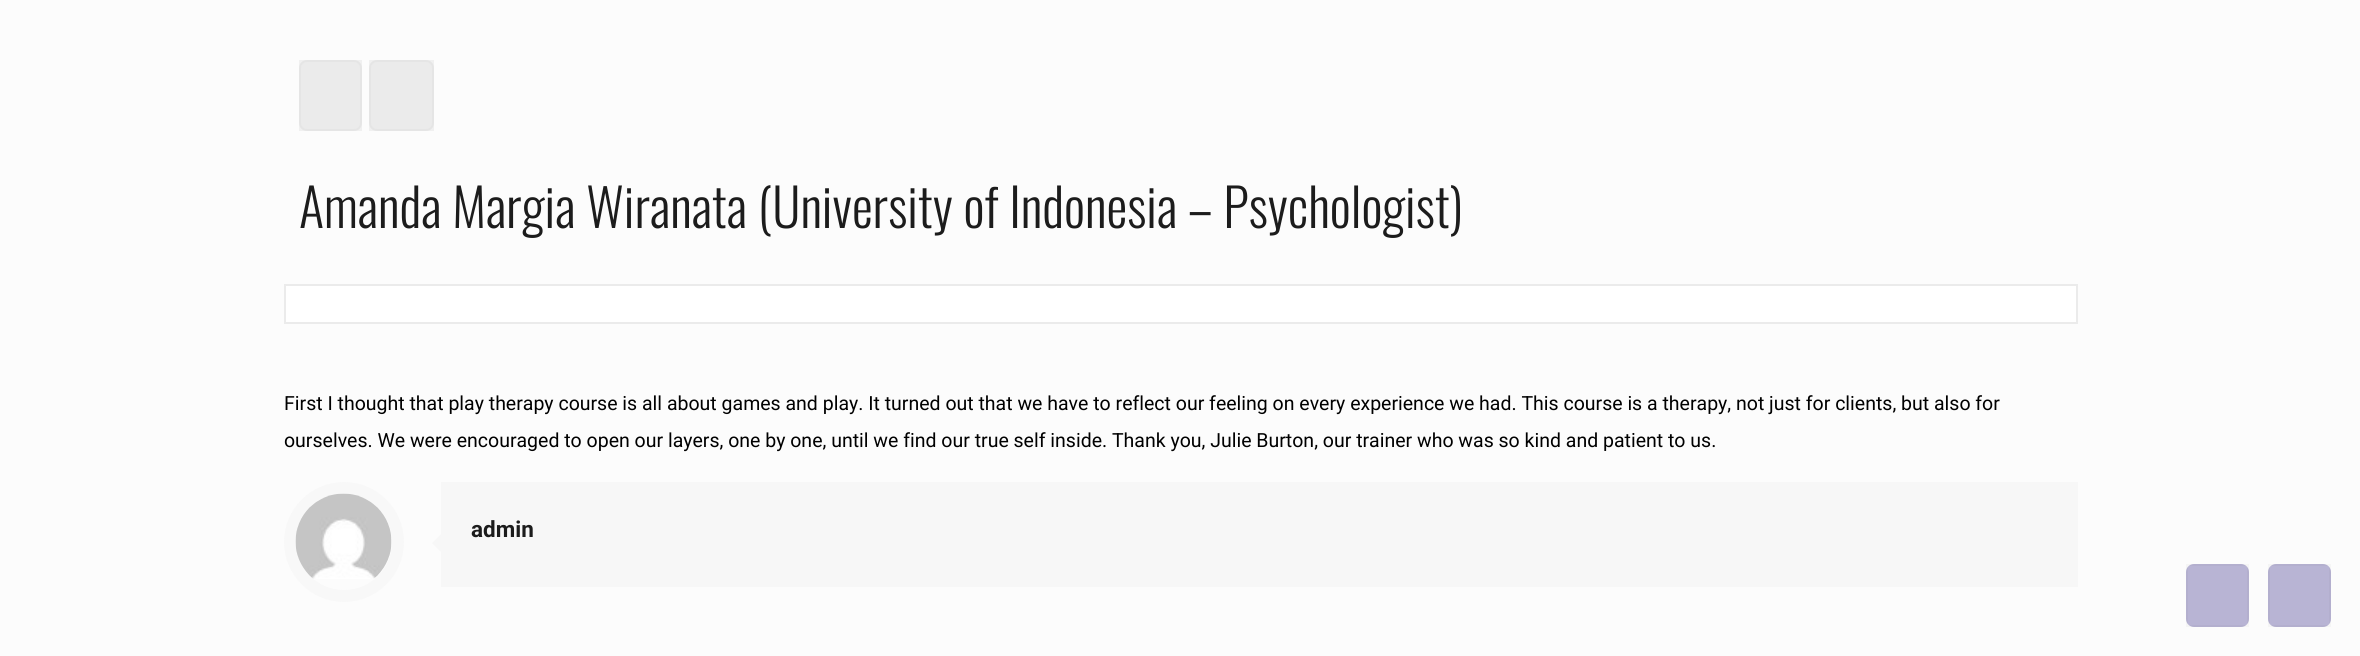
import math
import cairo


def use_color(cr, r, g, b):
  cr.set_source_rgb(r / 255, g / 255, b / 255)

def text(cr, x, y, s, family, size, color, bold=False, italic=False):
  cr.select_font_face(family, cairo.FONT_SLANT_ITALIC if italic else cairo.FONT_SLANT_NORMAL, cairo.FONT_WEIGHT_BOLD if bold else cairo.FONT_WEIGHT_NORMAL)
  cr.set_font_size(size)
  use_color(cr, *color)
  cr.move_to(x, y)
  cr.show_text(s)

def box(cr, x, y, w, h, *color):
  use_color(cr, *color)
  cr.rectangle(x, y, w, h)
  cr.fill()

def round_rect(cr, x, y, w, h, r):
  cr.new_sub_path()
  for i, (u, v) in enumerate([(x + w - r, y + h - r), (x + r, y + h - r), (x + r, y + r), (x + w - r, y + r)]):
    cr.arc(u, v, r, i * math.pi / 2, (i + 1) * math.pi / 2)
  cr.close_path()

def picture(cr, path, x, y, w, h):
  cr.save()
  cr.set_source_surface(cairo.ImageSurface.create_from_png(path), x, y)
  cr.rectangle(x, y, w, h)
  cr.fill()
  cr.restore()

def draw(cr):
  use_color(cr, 252, 252, 252)
  cr.paint()
  use_color(cr, 247, 247, 247)
  round_rect(cr, 300, 61, 61, 69, 7)
  cr.fill_preserve()
  use_color(cr, 240, 240, 240)
  cr.stroke()
  cr.set_source_rgba(0, 0, 0, 0.05)
  cr.rectangle(299, 60, 63, 71)
  cr.fill()
  use_color(cr, 247, 247, 247)
  round_rect(cr, 370, 61, 63, 69, 7)
  cr.fill_preserve()
  use_color(cr, 240, 240, 240)
  cr.stroke()
  cr.set_source_rgba(0, 0, 0, 0.05)
  cr.rectangle(369, 60, 65, 71)
  cr.fill()
  use_color(cr, 255, 255, 255)
  cr.rectangle(285, 285, 1792, 38)
  cr.fill_preserve()
  use_color(cr, 235, 235, 235)
  cr.stroke()
  cr.arc(344, 542, 54, 0, 2 * math.pi)
  use_color(cr, 248, 248, 248)
  cr.set_line_width(12)
  cr.stroke()
  picture(cr, "img_01.png", 295, 493, 97, 86)
  box(cr, 441, 482, 1637, 105, 247, 247, 247)
  cr.new_path()
  cr.move_to(441, 534)
  cr.line_to(441, 552)
  cr.line_to(432, 543)
  cr.close_path()
  cr.fill()
  use_color(cr, 184, 180, 212)
  round_rect(cr, 2186, 564, 63, 63, 8)
  cr.fill()
  cr.rectangle(2187, 565, 61, 61)
  cr.set_source_rgba(0, 0, 0, 0.03)
  cr.set_line_width(2)
  cr.stroke()
  use_color(cr, 184, 180, 212)
  round_rect(cr, 2268, 564, 63, 63, 8)
  cr.fill()
  cr.rectangle(2269, 565, 61, 61)
  cr.set_source_rgba(0, 0, 0, 0.03)
  cr.stroke()
  text(cr, 299, 228, "Amanda Margia Wiranata (University of Indonesia – Psychologist)", "Oswald Light", 52.5, (28, 28, 28))
  text(cr, 284, 410, "First I thought that play therapy course is all about games and play. It turned out that we have to reflect our feeling on every experience we had. This course is a therapy, not just for clients, but also for", "Roboto", 19.5, (0, 0, 0))
  text(cr, 284, 447, "ourselves. We were encouraged to open our layers, one by one, until we find our true self inside. Thank you, Julie Burton, our trainer who was so kind and patient to us.", "Roboto", 19.5, (0, 0, 0))
  text(cr, 471, 537, "admin", "Roboto", 22.5, (28, 28, 28), bold=True)


surface = cairo.ImageSurface(cairo.FORMAT_RGB24, 2360, 656)
cr = cairo.Context(surface)
options = cairo.FontOptions()
options.set_hint_metrics(cairo.HINT_METRICS_OFF)
options.set_hint_style(cairo.HINT_STYLE_NONE)
cr.set_font_options(options)
cr.set_miter_limit(4)
draw(cr)
surface.write_to_png("out.png")
